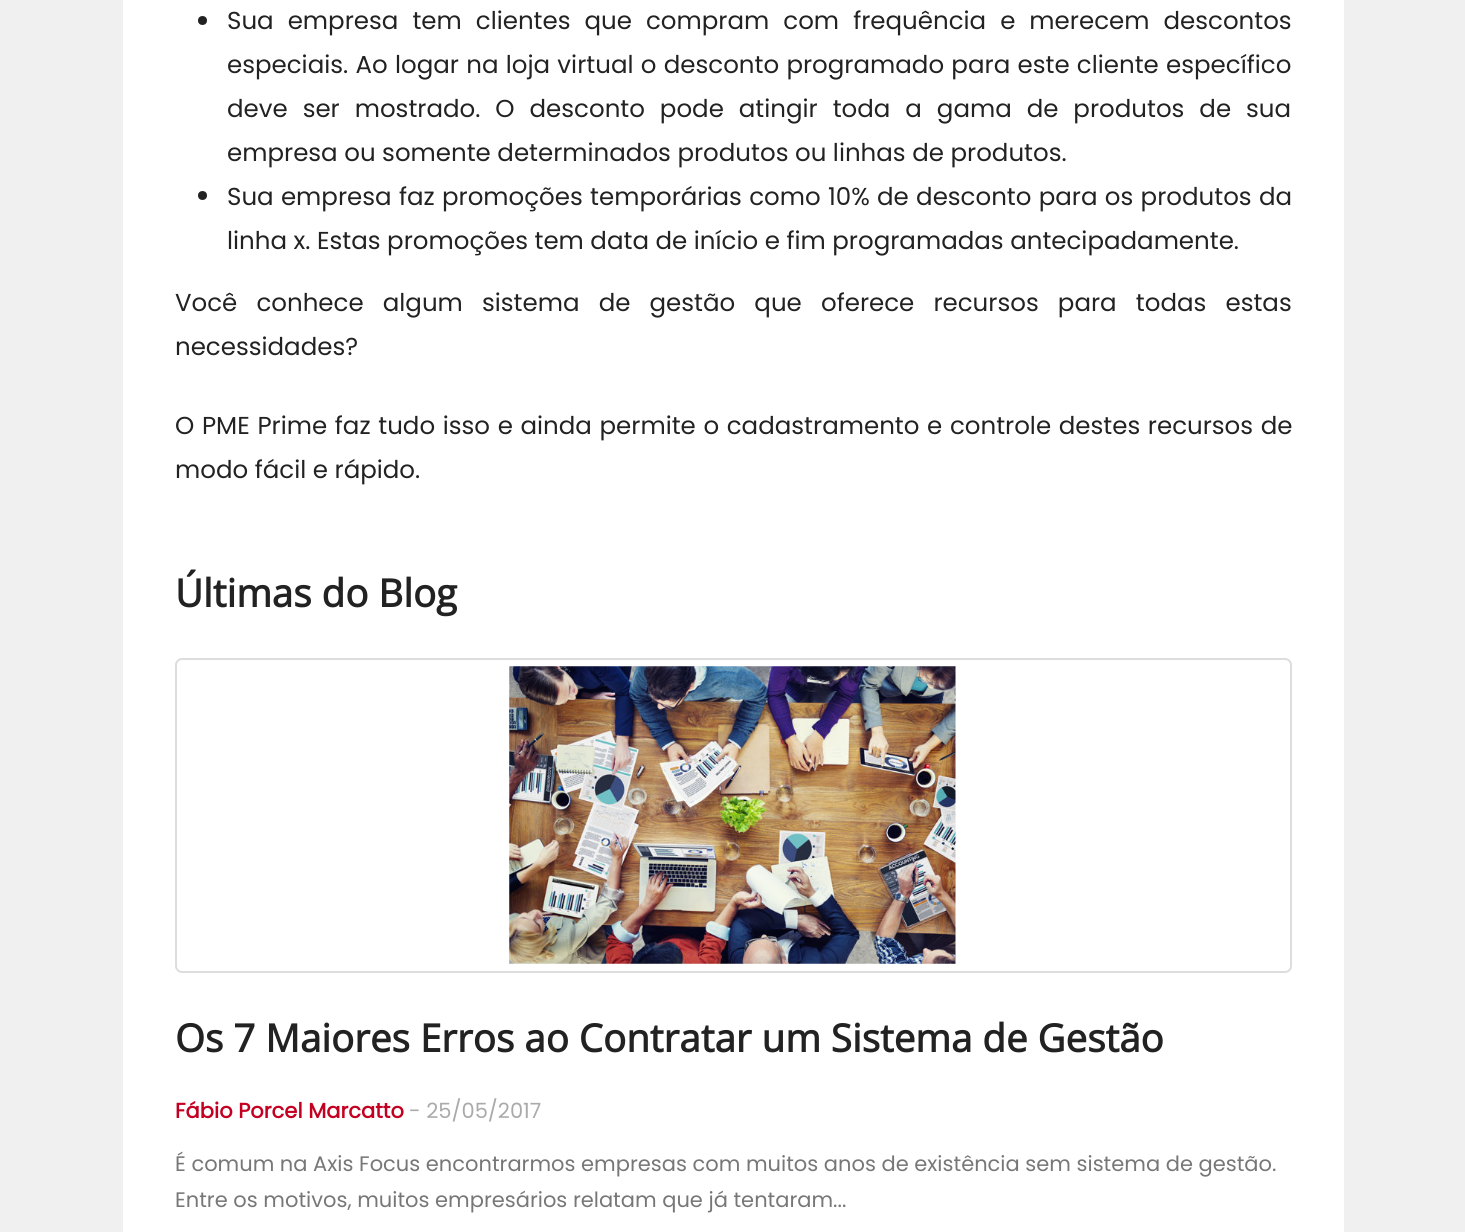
import math
import cairo


def use_color(cr, r, g, b):
  cr.set_source_rgb(r / 255, g / 255, b / 255)

def text(cr, x, y, s, family, size, color, bold=False, italic=False):
  cr.select_font_face(family, cairo.FONT_SLANT_ITALIC if italic else cairo.FONT_SLANT_NORMAL, cairo.FONT_WEIGHT_BOLD if bold else cairo.FONT_WEIGHT_NORMAL)
  cr.set_font_size(size)
  use_color(cr, *color)
  cr.move_to(x, y)
  cr.show_text(s)

def spaced_text(cr, x, y, s, letter, word):
  cr.move_to(x, y)
  for ch in s:
    cr.show_text(ch)
    cr.rel_move_to(letter + word * (ch == ' '), 0)

def box(cr, x, y, w, h, *color):
  use_color(cr, *color)
  cr.rectangle(x, y, w, h)
  cr.fill()

def round_rect(cr, x, y, w, h, r):
  cr.new_sub_path()
  for i, (u, v) in enumerate([(x + w - r, y + h - r), (x + r, y + h - r), (x + r, y + r), (x + w - r, y + r)]):
    cr.arc(u, v, r, i * math.pi / 2, (i + 1) * math.pi / 2)
  cr.close_path()

def picture(cr, path, x, y, w, h):
  cr.save()
  cr.set_source_surface(cairo.ImageSurface.create_from_png(path), x, y)
  cr.rectangle(x, y, w, h)
  cr.fill()
  cr.restore()

def draw(cr):
  use_color(cr, 240, 240, 240)
  cr.paint()
  box(cr, 123, 0, 1221, 1232, 255, 255, 255)
  use_color(cr, 34, 34, 34)
  cr.arc(202.5, 20.5, 4.5, 0, 2 * math.pi)
  cr.fill()
  cr.arc(202.5, 195.5, 4.5, 0, 2 * math.pi)
  cr.fill()
  round_rect(cr, 176, 659, 1115, 313, 6)
  use_color(cr, 221, 221, 221)
  cr.stroke()
  picture(cr, "img_01.png", 509, 666, 447, 298)
  cr.select_font_face("Poppins")
  cr.set_font_size(24.5)
  use_color(cr, 34, 34, 34)
  spaced_text(cr, 227, 29, "Sua empresa tem clientes que compram com frequência e merecem descontos", 0, 7.5)
  spaced_text(cr, 227, 73, "especiais. Ao logar na loja virtual o desconto programado para este cliente específico", 0, 0.75)
  spaced_text(cr, 227, 117, "deve ser mostrado. O desconto pode atingir toda a gama de produtos de sua", 0, 8.4)
  text(cr, 227, 161, "empresa ou somente determinados produtos ou linhas de produtos.", "Poppins", 24.5, (34, 34, 34))
  spaced_text(cr, 227, 205, "Sua empresa faz promoções temporárias como 10% de desconto para os produtos da", 0, 0.75)
  text(cr, 227, 249, "linha x. Estas promoções tem data de início e fim programadas antecipadamente.", "Poppins", 24.5, (34, 34, 34))
  spaced_text(cr, 175, 311, "Você conhece algum sistema de gestão que oferece recursos para todas estas", 0, 12.6)
  text(cr, 175, 355, "necessidades?", "Poppins", 24.5, (34, 34, 34))
  spaced_text(cr, 175, 434, "O PME Prime faz tudo isso e ainda permite o cadastramento e controle destes recursos de", 0, 1.1)
  text(cr, 175, 478, "modo fácil e rápido.", "Poppins", 24.5, (34, 34, 34))
  text(cr, 175, 607, "Últimas do Blog", "Open Sans", 38.5, (34, 34, 34), bold=True)
  text(cr, 175, 1052, "Os 7 Maiores Erros ao Contratar um Sistema de Gestão", "Open Sans", 38.5, (34, 34, 34), bold=True)
  text(cr, 175, 1118, "Fábio Porcel Marcatto", "Poppins", 21, (196, 0, 34), bold=True)
  text(cr, 409, 1118, "- 25/05/2017", "Poppins", 21, (170, 170, 170))
  text(cr, 175, 1171, "É comum na Axis Focus encontrarmos empresas com muitos anos de existência sem sistema de gestão.", "Poppins", 21, (119, 119, 119))
  text(cr, 175, 1207, "Entre os motivos, muitos empresários relatam que já tentaram...", "Poppins", 21, (119, 119, 119))


surface = cairo.ImageSurface(cairo.FORMAT_RGB24, 1465, 1232)
cr = cairo.Context(surface)
options = cairo.FontOptions()
options.set_hint_metrics(cairo.HINT_METRICS_OFF)
options.set_hint_style(cairo.HINT_STYLE_NONE)
cr.set_font_options(options)
cr.set_miter_limit(4)
draw(cr)
surface.write_to_png("out.png")
